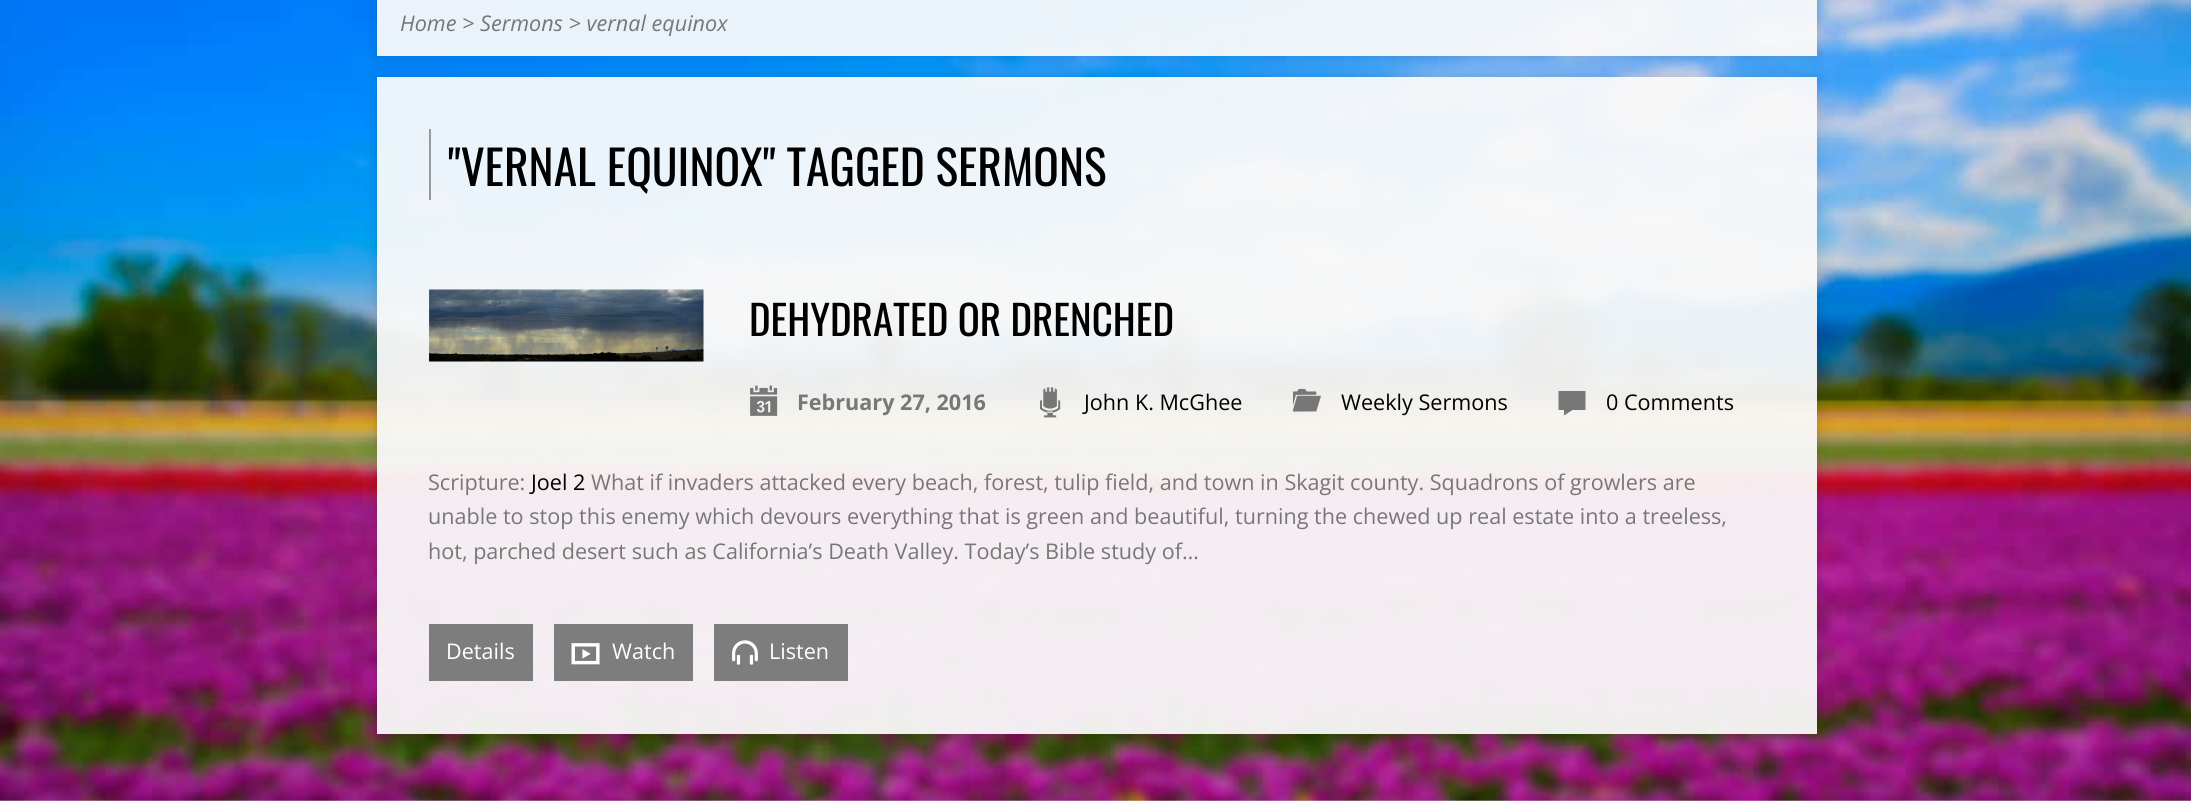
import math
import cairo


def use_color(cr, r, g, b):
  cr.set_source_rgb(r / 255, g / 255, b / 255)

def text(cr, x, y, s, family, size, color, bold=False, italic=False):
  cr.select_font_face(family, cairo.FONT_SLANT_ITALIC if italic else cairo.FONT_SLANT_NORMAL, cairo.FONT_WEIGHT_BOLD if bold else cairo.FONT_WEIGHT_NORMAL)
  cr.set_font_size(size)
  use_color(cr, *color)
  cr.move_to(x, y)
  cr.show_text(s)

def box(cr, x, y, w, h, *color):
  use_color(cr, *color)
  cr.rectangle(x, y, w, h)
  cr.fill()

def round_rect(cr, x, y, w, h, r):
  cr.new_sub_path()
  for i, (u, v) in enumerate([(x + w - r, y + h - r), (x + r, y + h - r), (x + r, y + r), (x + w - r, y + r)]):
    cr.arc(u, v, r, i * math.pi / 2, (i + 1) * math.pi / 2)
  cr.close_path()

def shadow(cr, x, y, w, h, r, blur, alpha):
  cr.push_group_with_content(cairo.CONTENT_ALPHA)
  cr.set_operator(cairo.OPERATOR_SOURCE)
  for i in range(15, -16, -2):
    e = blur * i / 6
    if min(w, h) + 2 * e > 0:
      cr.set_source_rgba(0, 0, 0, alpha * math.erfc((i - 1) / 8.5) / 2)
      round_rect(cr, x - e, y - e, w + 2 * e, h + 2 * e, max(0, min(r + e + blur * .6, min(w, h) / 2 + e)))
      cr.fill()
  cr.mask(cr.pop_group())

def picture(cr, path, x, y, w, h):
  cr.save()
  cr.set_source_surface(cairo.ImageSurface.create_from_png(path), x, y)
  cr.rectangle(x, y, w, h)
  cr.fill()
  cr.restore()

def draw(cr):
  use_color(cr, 255, 255, 255)
  cr.paint()
  picture(cr, "img_01.png", 0, 0, 2191, 801)
  cr.save()
  cr.set_fill_rule(cairo.FILL_RULE_EVEN_ODD)
  cr.new_path()
  cr.move_to(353, 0)
  cr.line_to(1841, 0)
  cr.line_to(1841, 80)
  cr.line_to(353, 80)
  cr.close_path()
  cr.move_to(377, -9)
  cr.line_to(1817, -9)
  cr.line_to(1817, 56)
  cr.line_to(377, 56)
  cr.close_path()
  cr.clip()
  use_color(cr, 0, 0, 0)
  shadow(cr, 377, -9, 1440, 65, 0, 7.5, 0.15)
  cr.restore()
  cr.set_source_rgba(0.98, 0.98, 0.98, 0.94)
  cr.rectangle(377, 0, 1440, 56)
  cr.fill()
  cr.save()
  cr.set_fill_rule(cairo.FILL_RULE_EVEN_ODD)
  cr.new_path()
  cr.move_to(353, 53)
  cr.line_to(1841, 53)
  cr.line_to(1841, 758)
  cr.line_to(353, 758)
  cr.close_path()
  cr.move_to(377, 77)
  cr.line_to(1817, 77)
  cr.line_to(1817, 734)
  cr.line_to(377, 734)
  cr.close_path()
  cr.clip()
  use_color(cr, 0, 0, 0)
  shadow(cr, 377, 77, 1440, 657, 0, 7.5, 0.15)
  cr.restore()
  cr.rectangle(377, 77, 1440, 657)
  cr.fill()
  box(cr, 429, 129, 2, 71, 153, 153, 153)
  picture(cr, "img_02.png", 429, 289, 275, 73)
  picture(cr, "img_03.png", 750, 385, 28, 31)
  picture(cr, "img_04.png", 1040, 387, 21, 31)
  picture(cr, "img_05.png", 1293, 388, 28, 24)
  use_color(cr, 119, 119, 119)
  cr.new_path()
  cr.move_to(1558.5, 391)
  cr.line_to(1558.5, 410)
  cr.line_to(1564, 410)
  cr.line_to(1564, 415.5)
  cr.line_to(1572.5, 410)
  cr.line_to(1585.5, 410)
  cr.line_to(1585.5, 391)
  cr.close_path()
  cr.fill()
  box(cr, 429, 624, 104, 57, 125, 125, 125)
  box(cr, 554, 624, 139, 57, 125, 125, 125)
  picture(cr, "img_06.png", 571, 643, 29, 22)
  box(cr, 714, 624, 134, 57, 125, 125, 125)
  picture(cr, "img_07.png", 732, 640, 26, 25)
  use_color(cr, 0, 0, 0)
  shadow(cr, 0, 801, 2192, 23, 0, 7.5, 0.15)
  text(cr, 400, 31, "Home > Sermons > vernal equinox", "Open Sans", 21.6, (119, 119, 119), italic=True)
  text(cr, 448, 186, "\"VERNAL EQUINOX\" TAGGED SERMONS", "Oswald", 47.5, (0, 0, 0))
  text(cr, 749, 336, "DEHYDRATED OR DRENCHED", "Oswald", 41, (0, 0, 0))
  text(cr, 797, 410, "February 27, 2016", "Open Sans", 21.6, (119, 119, 119), bold=True)
  text(cr, 1084, 410, "John K. McGhee", "Open Sans", 21.6, (0, 0, 0))
  text(cr, 1341, 410, "Weekly Sermons", "Open Sans", 21.6, (0, 0, 0))
  text(cr, 1606, 410, "0 Comments", "Open Sans", 21.6, (0, 0, 0))
  text(cr, 428, 490, "Scripture:", "Open Sans", 21.6, (119, 119, 119))
  text(cr, 531, 490, "Joel 2", "Open Sans", 21.6, (0, 0, 0))
  text(cr, 591, 490, "What if invaders attacked every beach, forest, tulip field, and town in Skagit county. Squadrons of growlers are", "Open Sans", 21.6, (119, 119, 119))
  text(cr, 428, 524, "unable to stop this enemy which devours everything that is green and beautiful, turning the chewed up real estate into a treeless,", "Open Sans", 21.6, (119, 119, 119))
  text(cr, 428, 559, "hot, parched desert such as California’s Death Valley. Today’s Bible study of…", "Open Sans", 21.6, (119, 119, 119))
  text(cr, 446, 659, "Details", "Open Sans", 21.6, (255, 255, 255))
  text(cr, 612, 659, "Watch", "Open Sans", 21.6, (255, 255, 255))
  text(cr, 769, 659, "Listen", "Open Sans", 21.6, (255, 255, 255))


surface = cairo.ImageSurface(cairo.FORMAT_RGB24, 2191, 801)
cr = cairo.Context(surface)
options = cairo.FontOptions()
options.set_hint_metrics(cairo.HINT_METRICS_OFF)
options.set_hint_style(cairo.HINT_STYLE_NONE)
cr.set_font_options(options)
cr.set_miter_limit(4)
draw(cr)
surface.write_to_png("out.png")
